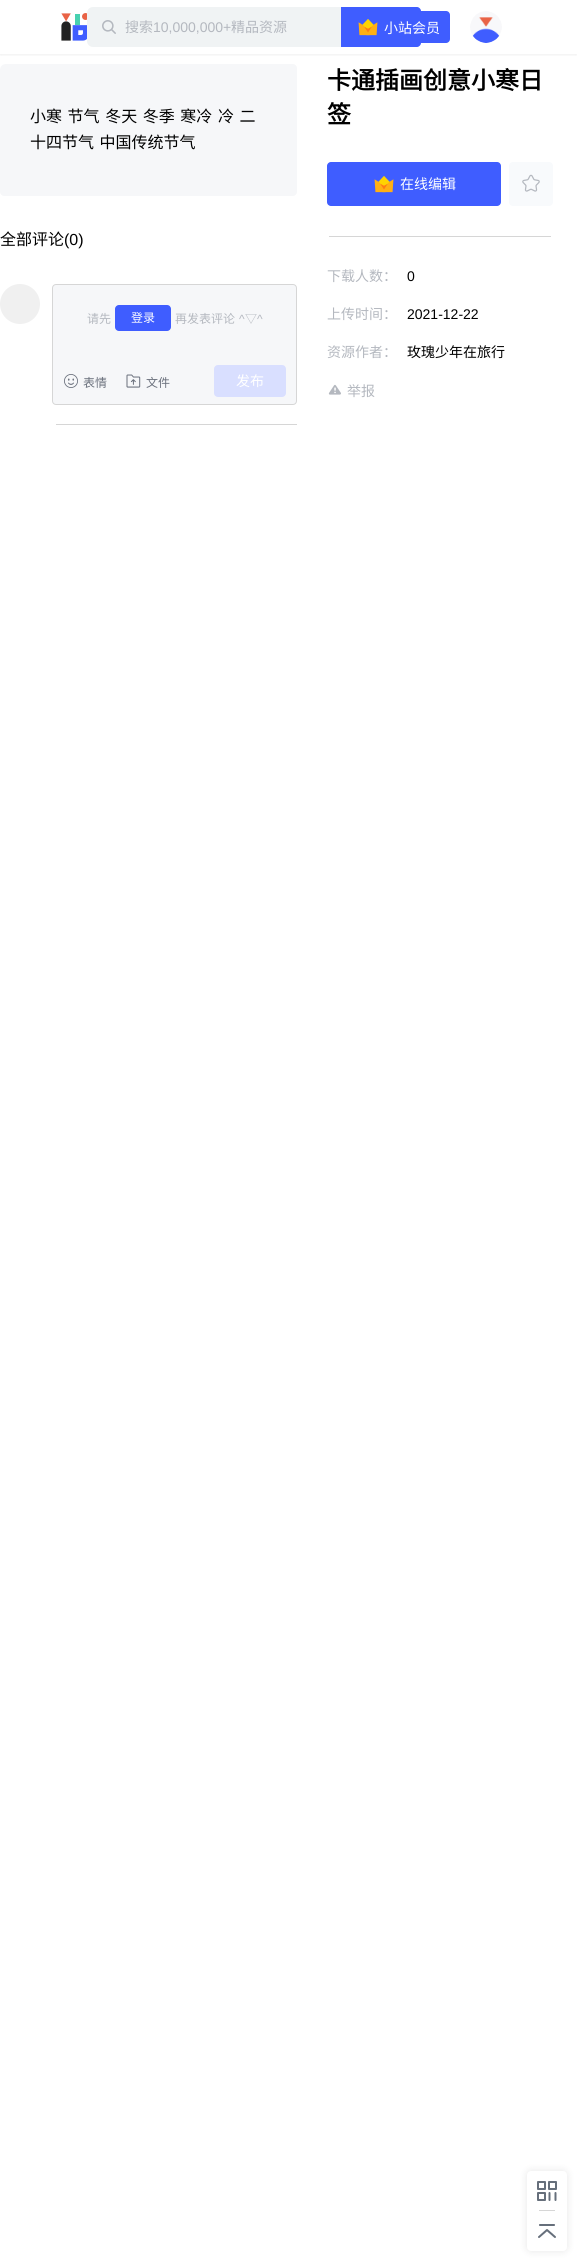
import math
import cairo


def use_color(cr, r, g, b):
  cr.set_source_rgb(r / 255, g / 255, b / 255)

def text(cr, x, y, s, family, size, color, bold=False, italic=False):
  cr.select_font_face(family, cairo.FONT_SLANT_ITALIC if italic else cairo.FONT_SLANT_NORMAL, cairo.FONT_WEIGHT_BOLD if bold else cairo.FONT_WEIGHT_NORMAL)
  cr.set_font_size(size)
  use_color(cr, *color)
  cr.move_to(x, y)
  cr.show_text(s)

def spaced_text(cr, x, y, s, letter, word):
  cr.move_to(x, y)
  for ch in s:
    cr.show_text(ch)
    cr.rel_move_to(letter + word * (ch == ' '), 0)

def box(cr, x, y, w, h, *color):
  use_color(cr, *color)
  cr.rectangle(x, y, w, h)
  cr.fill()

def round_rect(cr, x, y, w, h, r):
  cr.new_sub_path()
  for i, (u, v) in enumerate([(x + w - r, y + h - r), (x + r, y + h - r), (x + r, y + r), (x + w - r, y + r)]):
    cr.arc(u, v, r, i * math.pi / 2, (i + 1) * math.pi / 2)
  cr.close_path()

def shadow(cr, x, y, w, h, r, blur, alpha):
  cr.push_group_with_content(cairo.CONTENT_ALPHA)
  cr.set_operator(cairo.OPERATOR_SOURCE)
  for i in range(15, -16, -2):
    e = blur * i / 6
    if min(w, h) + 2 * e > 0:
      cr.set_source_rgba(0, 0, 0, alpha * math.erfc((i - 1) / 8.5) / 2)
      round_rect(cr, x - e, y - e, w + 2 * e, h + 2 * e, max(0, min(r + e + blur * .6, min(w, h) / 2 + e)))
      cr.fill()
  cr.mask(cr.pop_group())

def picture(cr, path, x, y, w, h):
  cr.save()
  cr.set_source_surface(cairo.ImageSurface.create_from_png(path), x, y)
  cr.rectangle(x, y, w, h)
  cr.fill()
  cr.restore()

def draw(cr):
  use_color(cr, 255, 255, 255)
  cr.paint()
  cr.save()
  cr.rectangle(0, 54, 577, 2)
  cr.clip()
  use_color(cr, 0, 0, 0)
  shadow(cr, 0, 0, 577, 54, 0, 2.5, 0.1)
  cr.restore()
  picture(cr, "img_01.png", 61, 13, 26, 28)
  use_color(cr, 240, 243, 244)
  round_rect(cr, 87, 7, 334, 40, 6)
  cr.fill()
  picture(cr, "img_02.png", 102, 20, 14, 14)
  use_color(cr, 63, 93, 255)
  cr.new_path()
  cr.move_to(341, 7)
  cr.line_to(417, 7)
  cr.curve_to(419, 7, 421, 9, 421, 11)
  cr.line_to(421, 43)
  cr.curve_to(421, 45, 419, 47, 417, 47)
  cr.line_to(341, 47)
  cr.close_path()
  cr.fill()
  round_rect(cr, 346, 11, 104, 32, 4)
  cr.fill()
  picture(cr, "img_03.png", 358, 19, 20, 17)
  picture(cr, "img_04.png", 470, 11, 32, 32)
  use_color(cr, 246, 247, 249)
  cr.new_path()
  cr.move_to(6, 64)
  cr.line_to(293, 64)
  cr.curve_to(295, 64, 297, 66, 297, 68)
  cr.line_to(297, 192)
  cr.curve_to(297, 194, 295, 196, 293, 196)
  cr.line_to(4, 196)
  cr.curve_to(2, 196, 0, 194, 0, 192)
  cr.line_to(0, 70)
  cr.curve_to(0, 66.5, 2.5, 64, 6, 64)
  cr.close_path()
  cr.fill()
  use_color(cr, 240, 240, 240)
  cr.arc(20, 304, 20, 0, 2 * math.pi)
  cr.fill()
  use_color(cr, 246, 247, 249)
  round_rect(cr, 52.5, 284.5, 244, 120, 3.5)
  cr.fill_preserve()
  use_color(cr, 214, 214, 214)
  cr.set_line_width(1)
  cr.stroke()
  use_color(cr, 63, 93, 255)
  round_rect(cr, 115, 305, 56, 26, 4)
  cr.fill()
  picture(cr, "img_05.png", 64, 374, 14, 14)
  picture(cr, "img_06.png", 126, 374, 15, 14)
  use_color(cr, 217, 223, 255)
  round_rect(cr, 214, 365, 72, 32, 4)
  cr.fill()
  box(cr, 56, 424, 241, 1, 214, 214, 214)
  use_color(cr, 63, 93, 255)
  round_rect(cr, 327, 162, 174, 44, 4)
  cr.fill()
  picture(cr, "img_03.png", 374, 176, 20, 17)
  use_color(cr, 248, 250, 252)
  round_rect(cr, 509, 162, 44, 44, 4)
  cr.fill()
  picture(cr, "img_07.png", 522, 174, 18, 18)
  box(cr, 329, 236, 222, 1, 214, 214, 214)
  picture(cr, "img_08.png", 328, 384, 13, 11)
  use_color(cr, 0, 0, 0)
  shadow(cr, 527, 2171, 40, 80, 4, 4, 0.1)
  use_color(cr, 255, 255, 255)
  round_rect(cr, 527, 2171, 40, 80, 4)
  cr.fill()
  picture(cr, "img_09.png", 537, 2181, 20, 20)
  box(cr, 539, 2210, 16, 1, 214, 214, 214)
  picture(cr, "img_10.png", 538, 2224, 18, 14)
  text(cr, 125, 32, "搜索", "Noto Sans CJK SC", 14, (180, 184, 191))
  text(cr, 153, 32, "10,000,000+", "Liberation Sans", 14, (180, 184, 191))
  text(cr, 231, 32, "精品资源", "Noto Sans CJK SC", 14, (180, 184, 191))
  text(cr, 384, 33, "小站会员", "Noto Sans CJK SC", 14, (255, 255, 255))
  cr.set_font_size(16)
  use_color(cr, 0, 0, 0)
  spaced_text(cr, 30, 122, "小寒 节气 冬天 冬季 寒冷 冷 二", 0, 2)
  spaced_text(cr, 30, 148, "十四节气 中国传统节气", 0, 2)
  text(cr, 0, 245, "全部评论", "Noto Sans CJK SC", 16, (0, 0, 0))
  text(cr, 64, 245, "(0)", "Liberation Sans", 16, (0, 0, 0))
  text(cr, 87, 323, "请先", "Noto Sans CJK SC", 12, (180, 184, 191))
  text(cr, 131, 322, "登录", "Noto Sans CJK SC", 12, (255, 255, 255))
  text(cr, 175, 323, "再发表评论", "Noto Sans CJK SC", 12, (180, 184, 191))
  text(cr, 239, 323, "^", "Liberation Sans", 12, (180, 184, 191))
  text(cr, 245, 323, "▽", "Noto Sans CJK SC", 12, (180, 184, 191))
  text(cr, 257, 323, "^", "Liberation Sans", 12, (180, 184, 191))
  text(cr, 83, 387, "表情", "Noto Sans CJK SC", 12, (106, 112, 124))
  text(cr, 146, 387, "文件", "Noto Sans CJK SC", 12, (106, 112, 124))
  text(cr, 236, 386, "发布", "Noto Sans CJK SC", 14, (255, 255, 255))
  text(cr, 327, 89, "卡通插画创意小寒日", "Noto Sans CJK SC", 24, (0, 0, 0), bold=True)
  text(cr, 327, 123, "签", "Noto Sans CJK SC", 24, (0, 0, 0), bold=True)
  text(cr, 400, 189, "在线编辑", "Noto Sans CJK SC", 14, (255, 255, 255))
  text(cr, 327, 281, "下载人数：", "Noto Sans CJK SC", 14, (180, 184, 191))
  text(cr, 407, 281, "0", "Liberation Sans", 14, (0, 0, 0))
  text(cr, 327, 319, "上传时间：", "Noto Sans CJK SC", 14, (180, 184, 191))
  text(cr, 407, 319, "2021-12-22", "Liberation Sans", 14, (0, 0, 0))
  text(cr, 327, 357, "资源作者：", "Noto Sans CJK SC", 14, (180, 184, 191))
  text(cr, 407, 357, "玫瑰少年在旅行", "Noto Sans CJK SC", 14, (0, 0, 0))
  text(cr, 347, 396, "举报", "Noto Sans CJK SC", 14, (180, 184, 191))


surface = cairo.ImageSurface(cairo.FORMAT_RGB24, 577, 2263)
cr = cairo.Context(surface)
options = cairo.FontOptions()
options.set_hint_metrics(cairo.HINT_METRICS_OFF)
options.set_hint_style(cairo.HINT_STYLE_NONE)
cr.set_font_options(options)
cr.set_miter_limit(4)
draw(cr)
surface.write_to_png("out.png")
